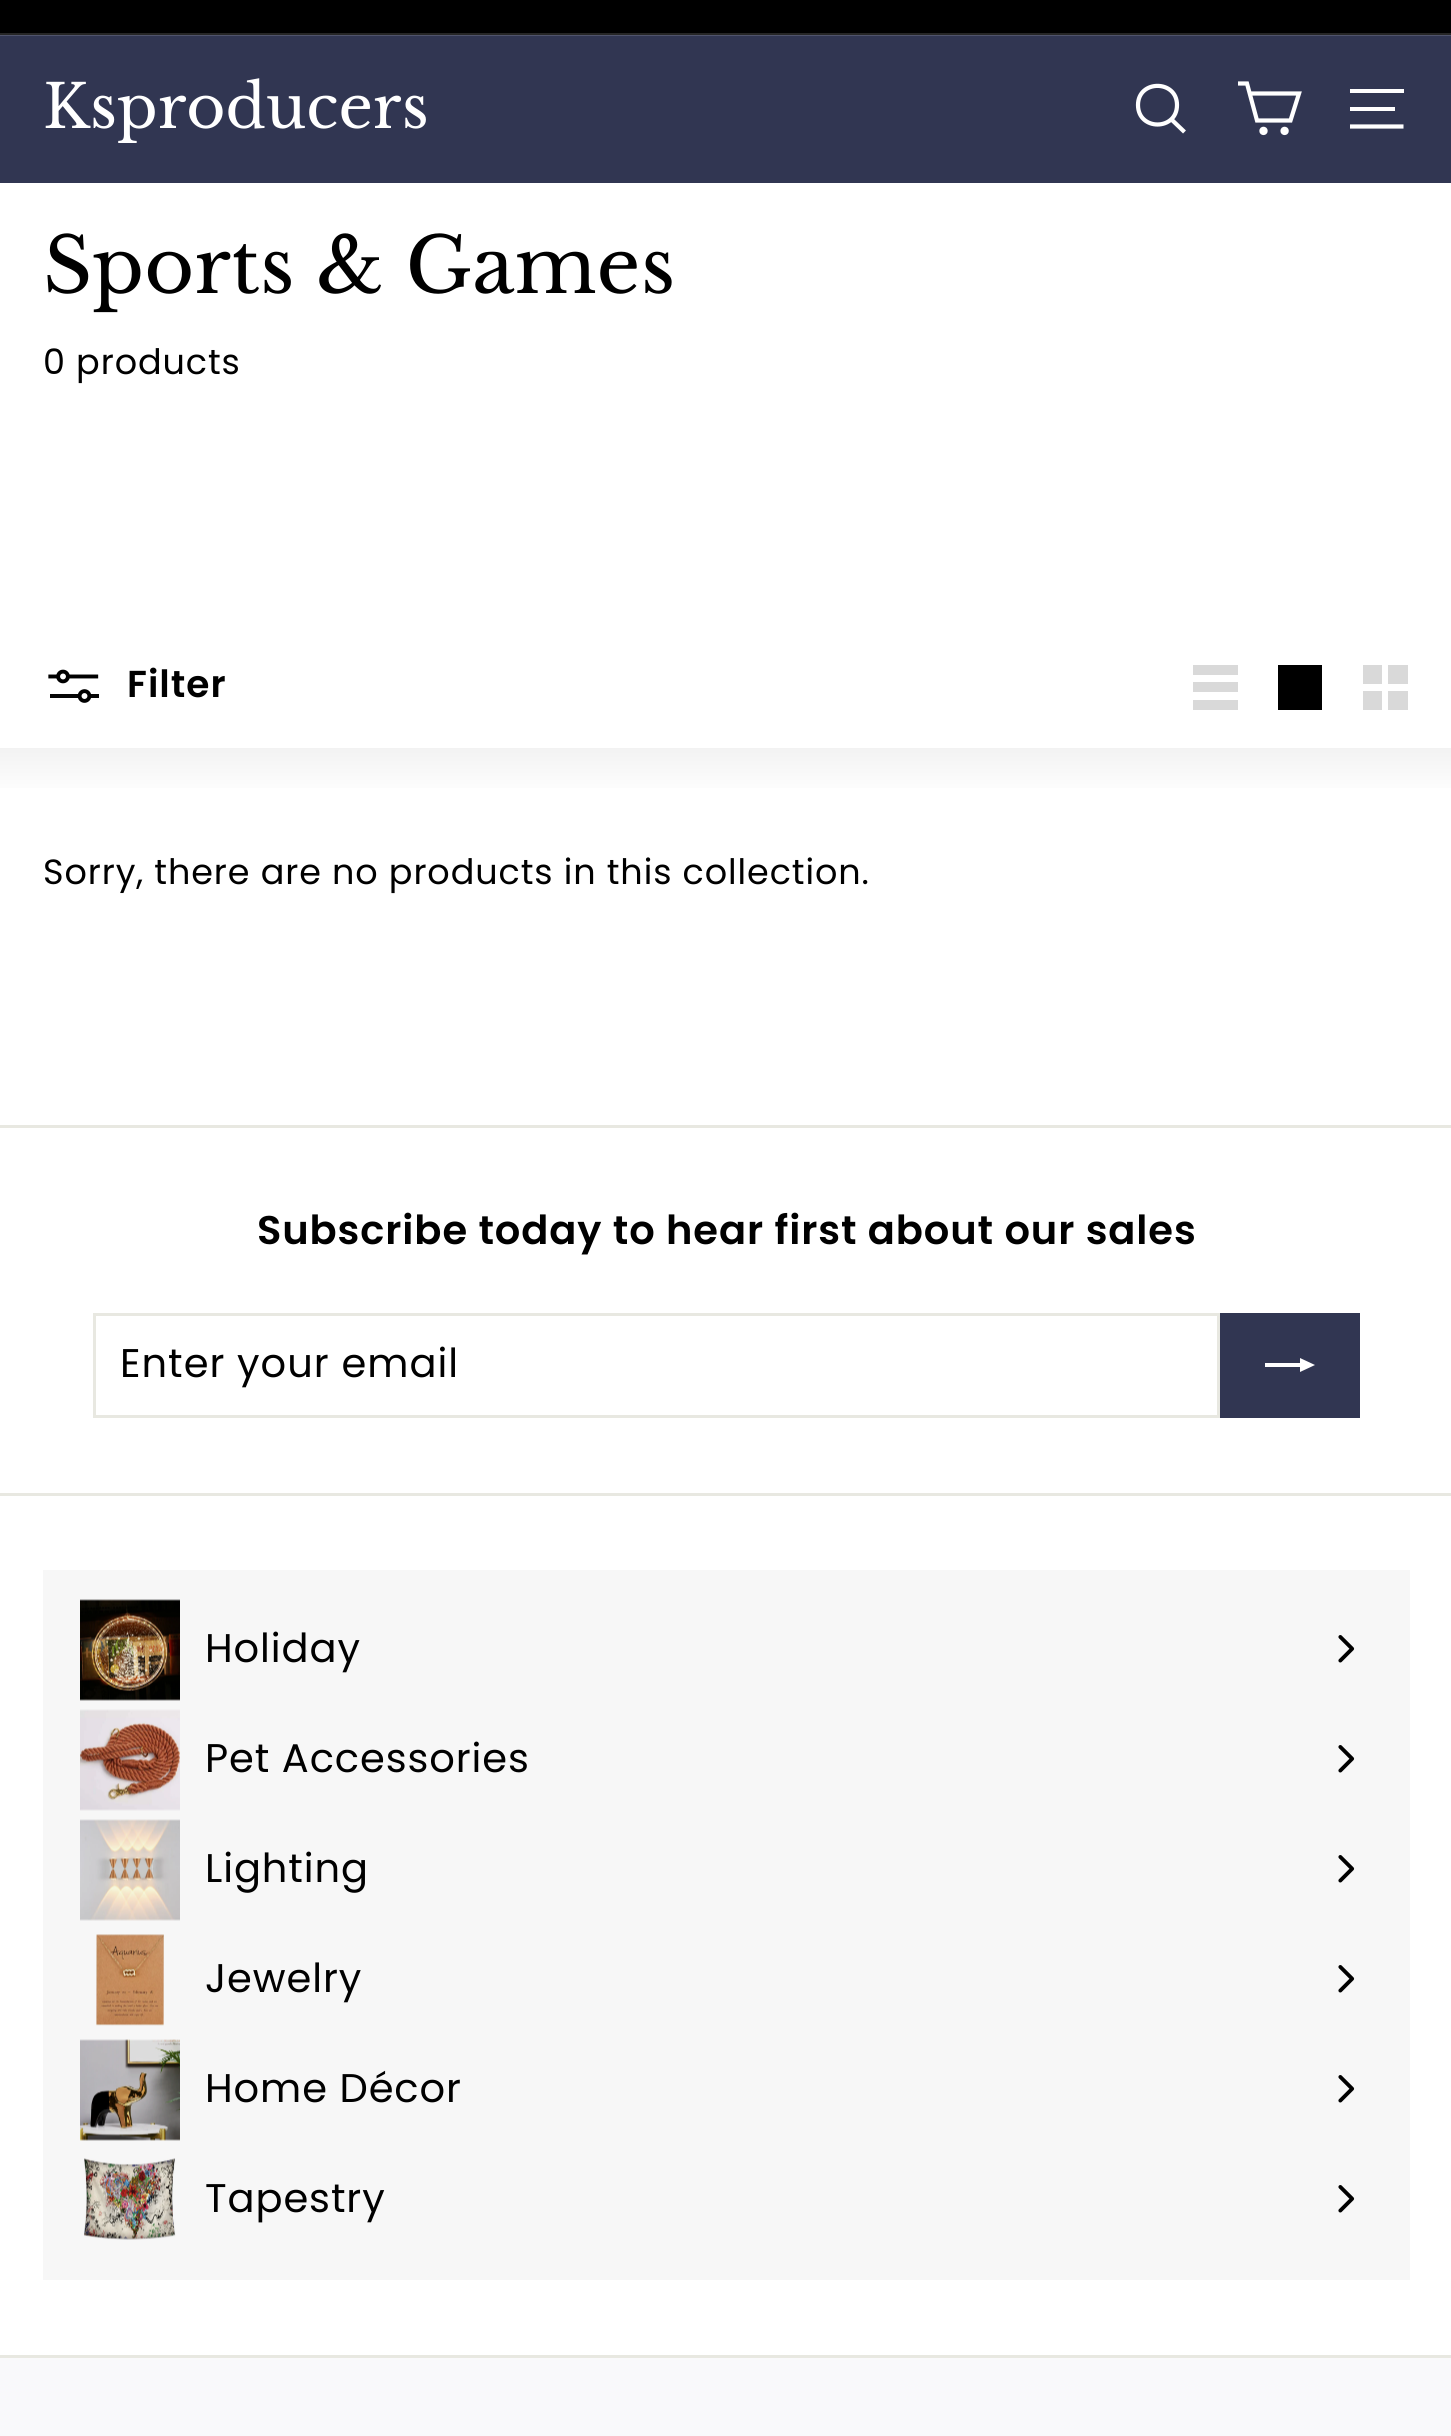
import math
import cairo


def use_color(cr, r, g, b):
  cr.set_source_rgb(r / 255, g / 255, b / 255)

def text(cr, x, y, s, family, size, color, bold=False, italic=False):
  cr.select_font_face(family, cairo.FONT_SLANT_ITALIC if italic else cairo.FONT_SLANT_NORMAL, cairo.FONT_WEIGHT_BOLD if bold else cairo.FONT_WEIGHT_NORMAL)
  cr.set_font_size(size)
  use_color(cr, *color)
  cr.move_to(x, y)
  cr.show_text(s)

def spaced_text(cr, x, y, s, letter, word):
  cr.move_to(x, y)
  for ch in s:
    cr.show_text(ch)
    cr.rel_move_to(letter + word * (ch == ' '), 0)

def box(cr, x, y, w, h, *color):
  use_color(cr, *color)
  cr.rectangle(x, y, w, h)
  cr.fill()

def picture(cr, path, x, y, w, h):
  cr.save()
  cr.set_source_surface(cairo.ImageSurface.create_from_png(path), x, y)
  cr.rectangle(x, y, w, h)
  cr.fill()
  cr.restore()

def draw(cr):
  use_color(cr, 255, 255, 255)
  cr.paint()
  box(cr, 43, 1570, 1367, 710, 247, 247, 247)
  box(cr, 0, 0, 1451, 33, 0, 0, 0)
  box(cr, 0, 33, 1451, 2, 38, 38, 38)
  box(cr, 0, 36, 1451, 147, 49, 54, 82)
  box(cr, 0, 35, 1451, 1, 80, 84, 108)
  cr.new_path()
  cr.move_to(1177, 105)
  cr.curve_to(1177, 131, 1138, 131, 1138, 105)
  cr.curve_to(1138, 79.5, 1177, 79.5, 1177, 105)
  cr.close_path()
  cr.move_to(1184.5, 132)
  cr.line_to(1171.5, 119.5)
  use_color(cr, 255, 255, 255)
  cr.set_line_width(4.2)
  cr.stroke()
  cr.new_path()
  cr.move_to(1250, 93.5)
  cr.line_to(1299, 93.5)
  cr.line_to(1290.5, 120.5)
  cr.line_to(1257, 120.5)
  cr.line_to(1247, 83.5)
  cr.line_to(1238, 83.5)
  cr.stroke()
  cr.arc(1263.5, 130.9, 2.1, 0, 2 * math.pi)
  cr.stroke()
  cr.arc(1284.6, 130.9, 2.1, 0, 2 * math.pi)
  cr.stroke()
  box(cr, 1350, 89, 54, 4, 255, 255, 255)
  box(cr, 1350, 107, 45, 4, 255, 255, 255)
  cr.new_path()
  cr.move_to(1350, 126.5)
  cr.line_to(1403.5, 126.5)
  cr.stroke()
  picture(cr, "img_01.png", 48, 669, 51, 34)
  cr.save()
  cr.rectangle(1193, 665, 45, 45)
  cr.clip()
  use_color(cr, 217, 217, 217)
  cr.new_path()
  cr.move_to(1192, 665)
  cr.line_to(1238, 665)
  cr.line_to(1238, 675)
  cr.line_to(1192, 675)
  cr.close_path()
  cr.move_to(1192, 682)
  cr.line_to(1238, 682)
  cr.line_to(1238, 692)
  cr.line_to(1192, 692)
  cr.close_path()
  cr.move_to(1192, 700)
  cr.line_to(1238, 700)
  cr.line_to(1238, 710)
  cr.line_to(1192, 710)
  cr.close_path()
  cr.fill()
  cr.restore()
  box(cr, 1278, 665, 44, 45, 0, 0, 0)
  cr.save()
  cr.rectangle(1363, 665, 45, 45)
  cr.clip()
  use_color(cr, 217, 217, 217)
  cr.new_path()
  cr.move_to(1362, 665)
  cr.line_to(1382, 665)
  cr.line_to(1382, 684)
  cr.line_to(1362, 684)
  cr.close_path()
  cr.move_to(1388, 665)
  cr.line_to(1408, 665)
  cr.line_to(1408, 684)
  cr.line_to(1388, 684)
  cr.close_path()
  cr.move_to(1362, 691)
  cr.line_to(1382, 691)
  cr.line_to(1382, 710)
  cr.line_to(1362, 710)
  cr.close_path()
  cr.move_to(1388, 691)
  cr.line_to(1408, 691)
  cr.line_to(1408, 710)
  cr.line_to(1388, 710)
  cr.close_path()
  cr.fill()
  cr.restore()
  gradient = cairo.LinearGradient(726, 747, 726, 798)
  gradient.add_color_stop_rgba(0, 0.949, 0.949, 0.949, 1)
  gradient.add_color_stop_rgba(1, 1, 1, 1, 1)
  cr.set_source(gradient)
  cr.rectangle(0, 748, 1451, 40)
  cr.fill()
  box(cr, 0, 1125, 1451, 3, 232, 232, 225)
  cr.rectangle(94.5, 1314.5, 1124, 102)
  cr.set_line_width(3)
  cr.stroke()
  box(cr, 1220, 1313, 140, 105, 49, 54, 82)
  use_color(cr, 255, 255, 255)
  cr.new_path()
  cr.move_to(1265, 1367)
  cr.line_to(1265, 1363)
  cr.line_to(1300, 1363)
  cr.line_to(1300, 1358)
  cr.line_to(1315, 1365)
  cr.line_to(1300, 1372)
  cr.line_to(1300, 1367)
  cr.close_path()
  cr.fill()
  box(cr, 0, 1493, 1451, 3, 232, 232, 225)
  picture(cr, "img_02.png", 80, 1599, 100, 102)
  picture(cr, "img_03.png", 1338, 1635, 17, 28)
  picture(cr, "img_04.png", 80, 1709, 100, 102)
  picture(cr, "img_03.png", 1338, 1745, 17, 28)
  picture(cr, "img_05.png", 80, 1819, 100, 102)
  picture(cr, "img_03.png", 1338, 1855, 17, 28)
  picture(cr, "img_06.png", 96, 1934, 68, 92)
  picture(cr, "img_03.png", 1338, 1965, 17, 28)
  picture(cr, "img_07.png", 80, 2039, 100, 102)
  picture(cr, "img_03.png", 1338, 2075, 17, 28)
  picture(cr, "img_08.png", 84, 2158, 92, 82)
  picture(cr, "img_03.png", 1338, 2185, 17, 28)
  box(cr, 0, 2358, 1451, 78, 249, 249, 251)
  box(cr, 0, 2355, 1451, 3, 232, 232, 225)
  text(cr, 43, 128, "Ksproducers", "Libre Baskerville", 60, (255, 255, 255))
  text(cr, 43, 293, "Sports & Games", "Libre Baskerville", 76.5, (0, 0, 0))
  cr.select_font_face("Poppins")
  cr.set_font_size(35)
  spaced_text(cr, 43, 374, "0 products", 0.9, 0)
  cr.select_font_face("Poppins SemiBold")
  cr.set_font_size(37.5)
  spaced_text(cr, 127, 697, "Filter", 1, 0)
  cr.select_font_face("Poppins")
  cr.set_font_size(35)
  spaced_text(cr, 43, 884, "Sorry, there are no products in this collection.", 0.9, 0)
  cr.select_font_face("Poppins SemiBold")
  cr.set_font_size(40)
  spaced_text(cr, 257, 1244, "Subscribe today to hear first about our sales", 0.9, 0)
  cr.select_font_face("Poppins")
  spaced_text(cr, 120, 1377, "Enter your email", 1, 0)
  spaced_text(cr, 205, 1662, "Holiday", 0.9, 0)
  spaced_text(cr, 205, 1772, "Pet Accessories", 0.9, 0)
  spaced_text(cr, 205, 1882, "Lighting", 0.9, 0)
  spaced_text(cr, 205, 1992, "Jewelry", 0.9, 0)
  spaced_text(cr, 205, 2102, "Home Décor", 0.9, 0)
  spaced_text(cr, 205, 2212, "Tapestry", 0.9, 0)


surface = cairo.ImageSurface(cairo.FORMAT_RGB24, 1451, 2436)
cr = cairo.Context(surface)
options = cairo.FontOptions()
options.set_hint_metrics(cairo.HINT_METRICS_OFF)
options.set_hint_style(cairo.HINT_STYLE_NONE)
cr.set_font_options(options)
cr.set_miter_limit(4)
draw(cr)
surface.write_to_png("out.png")
